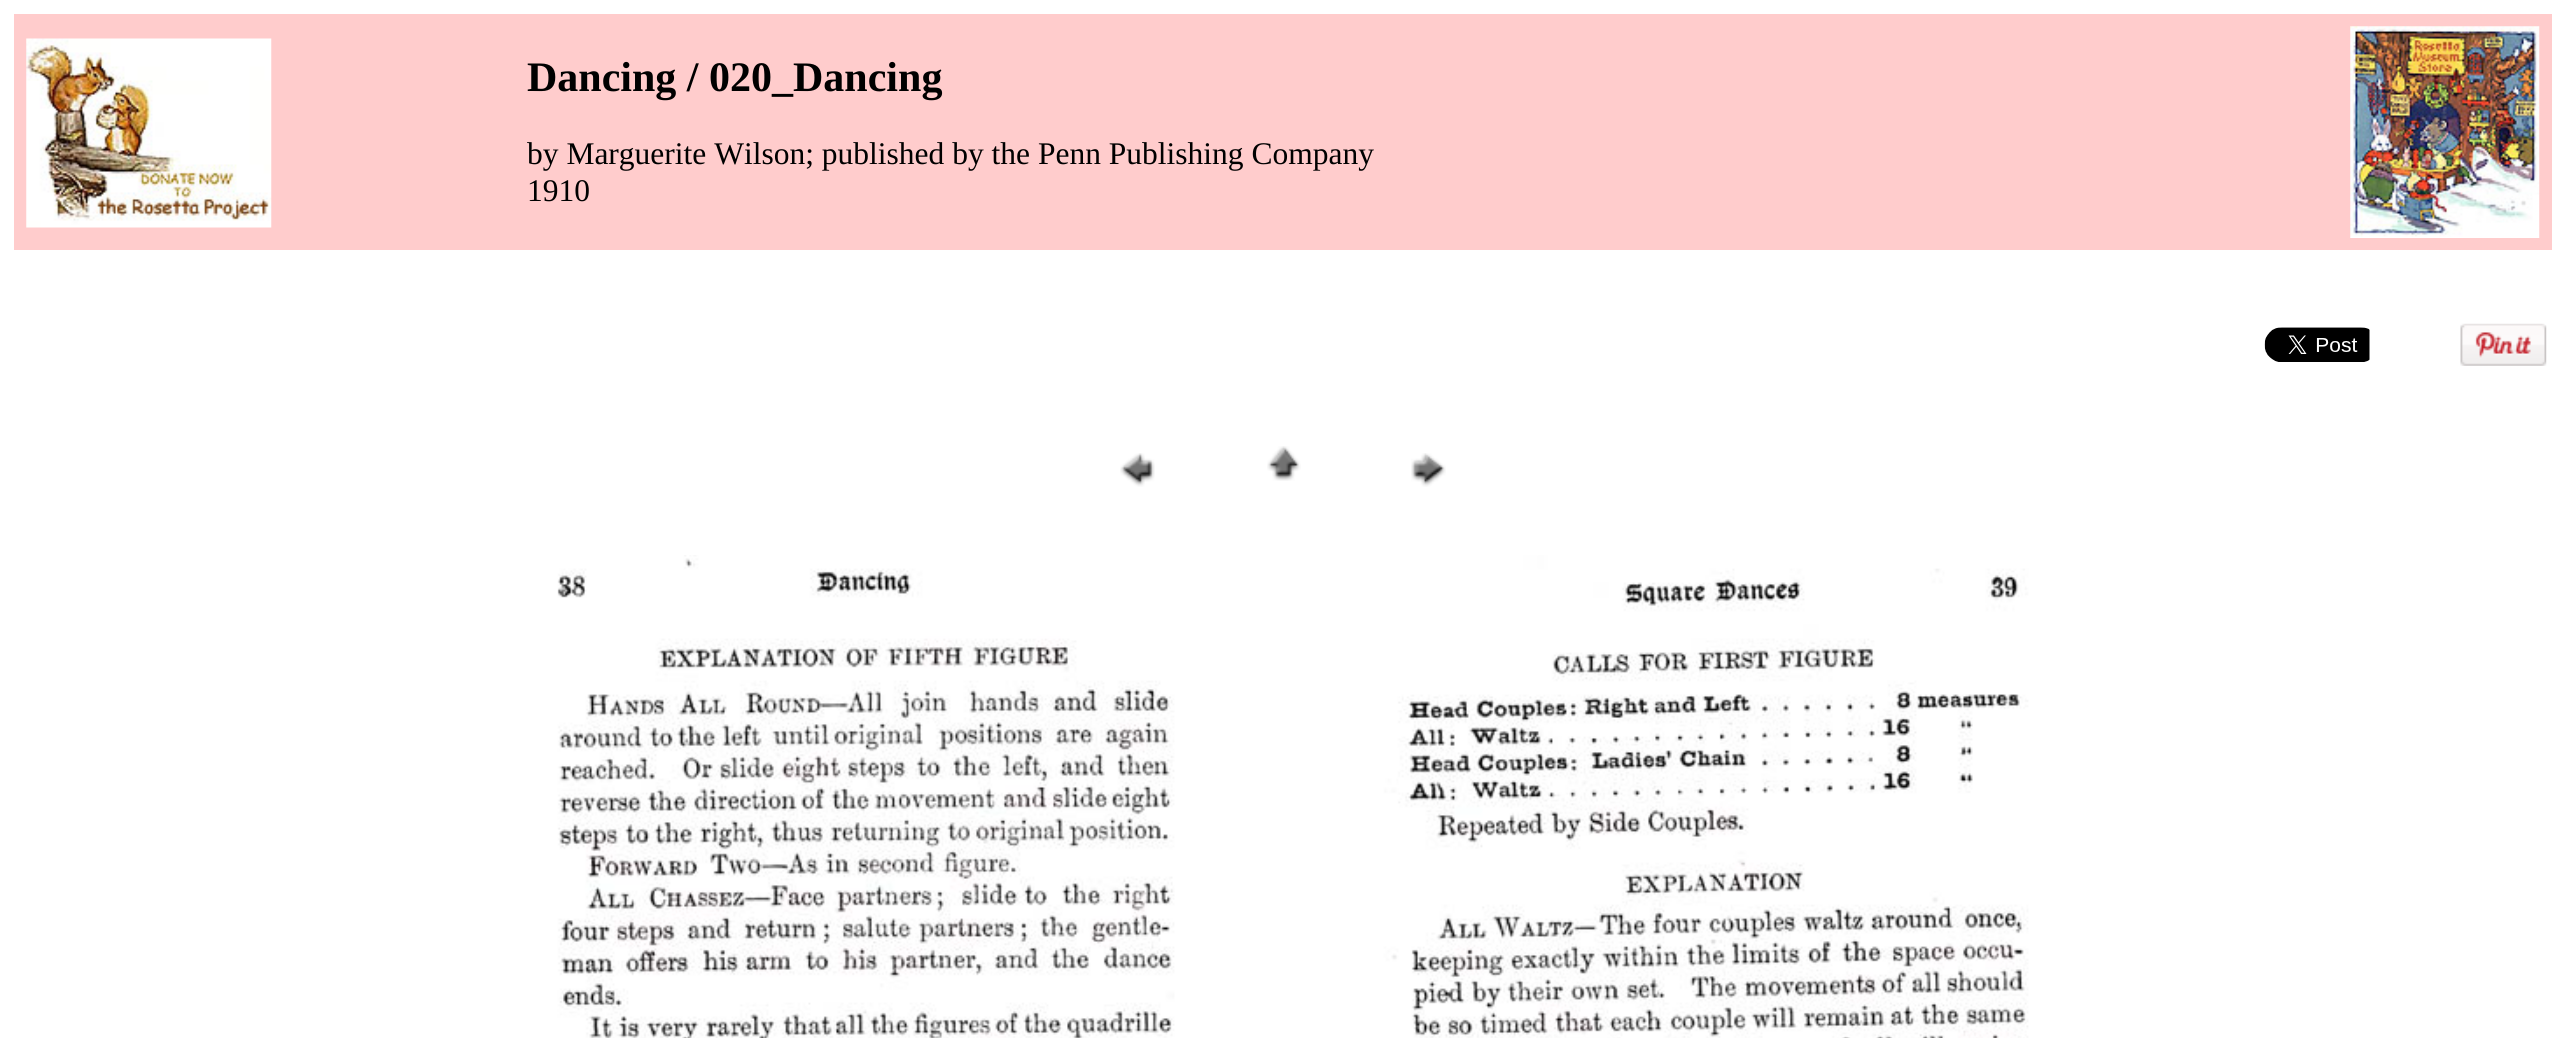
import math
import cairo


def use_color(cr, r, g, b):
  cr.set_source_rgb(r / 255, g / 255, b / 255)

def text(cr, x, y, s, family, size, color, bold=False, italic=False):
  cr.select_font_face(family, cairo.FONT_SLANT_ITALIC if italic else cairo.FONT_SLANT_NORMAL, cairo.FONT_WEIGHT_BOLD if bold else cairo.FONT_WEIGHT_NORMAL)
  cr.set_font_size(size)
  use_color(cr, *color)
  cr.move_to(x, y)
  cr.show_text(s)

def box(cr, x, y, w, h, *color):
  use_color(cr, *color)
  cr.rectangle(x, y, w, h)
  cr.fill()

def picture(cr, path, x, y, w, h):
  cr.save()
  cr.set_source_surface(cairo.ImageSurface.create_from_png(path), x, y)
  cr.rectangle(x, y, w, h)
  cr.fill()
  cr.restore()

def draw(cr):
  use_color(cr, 255, 255, 255)
  cr.paint()
  box(cr, 14, 14, 2538, 236, 255, 204, 204)
  picture(cr, "img_01.png", 26, 38, 246, 190)
  picture(cr, "img_02.png", 2350, 26, 190, 212)
  picture(cr, "img_03.png", 2264, 327, 106, 35)
  picture(cr, "img_04.png", 2460, 323, 87, 43)
  picture(cr, "img_05.png", 1120, 453, 35, 34)
  picture(cr, "img_06.png", 1267, 446, 34, 35)
  picture(cr, "img_07.png", 1411, 453, 35, 34)
  picture(cr, "img_08.png", 557, 555, 1472, 483)
  text(cr, 527, 91, "Dancing / 020_Dancing", "Liberation Serif", 42, (0, 0, 0), bold=True)
  text(cr, 527, 164, "by Marguerite Wilson; published by the Penn Publishing Company", "Liberation Serif", 31.5, (0, 0, 0))
  text(cr, 527, 201, "1910", "Liberation Serif", 31.5, (0, 0, 0))


surface = cairo.ImageSurface(cairo.FORMAT_RGB24, 2564, 1038)
cr = cairo.Context(surface)
options = cairo.FontOptions()
options.set_hint_metrics(cairo.HINT_METRICS_OFF)
options.set_hint_style(cairo.HINT_STYLE_NONE)
cr.set_font_options(options)
cr.set_miter_limit(4)
draw(cr)
surface.write_to_png("out.png")
